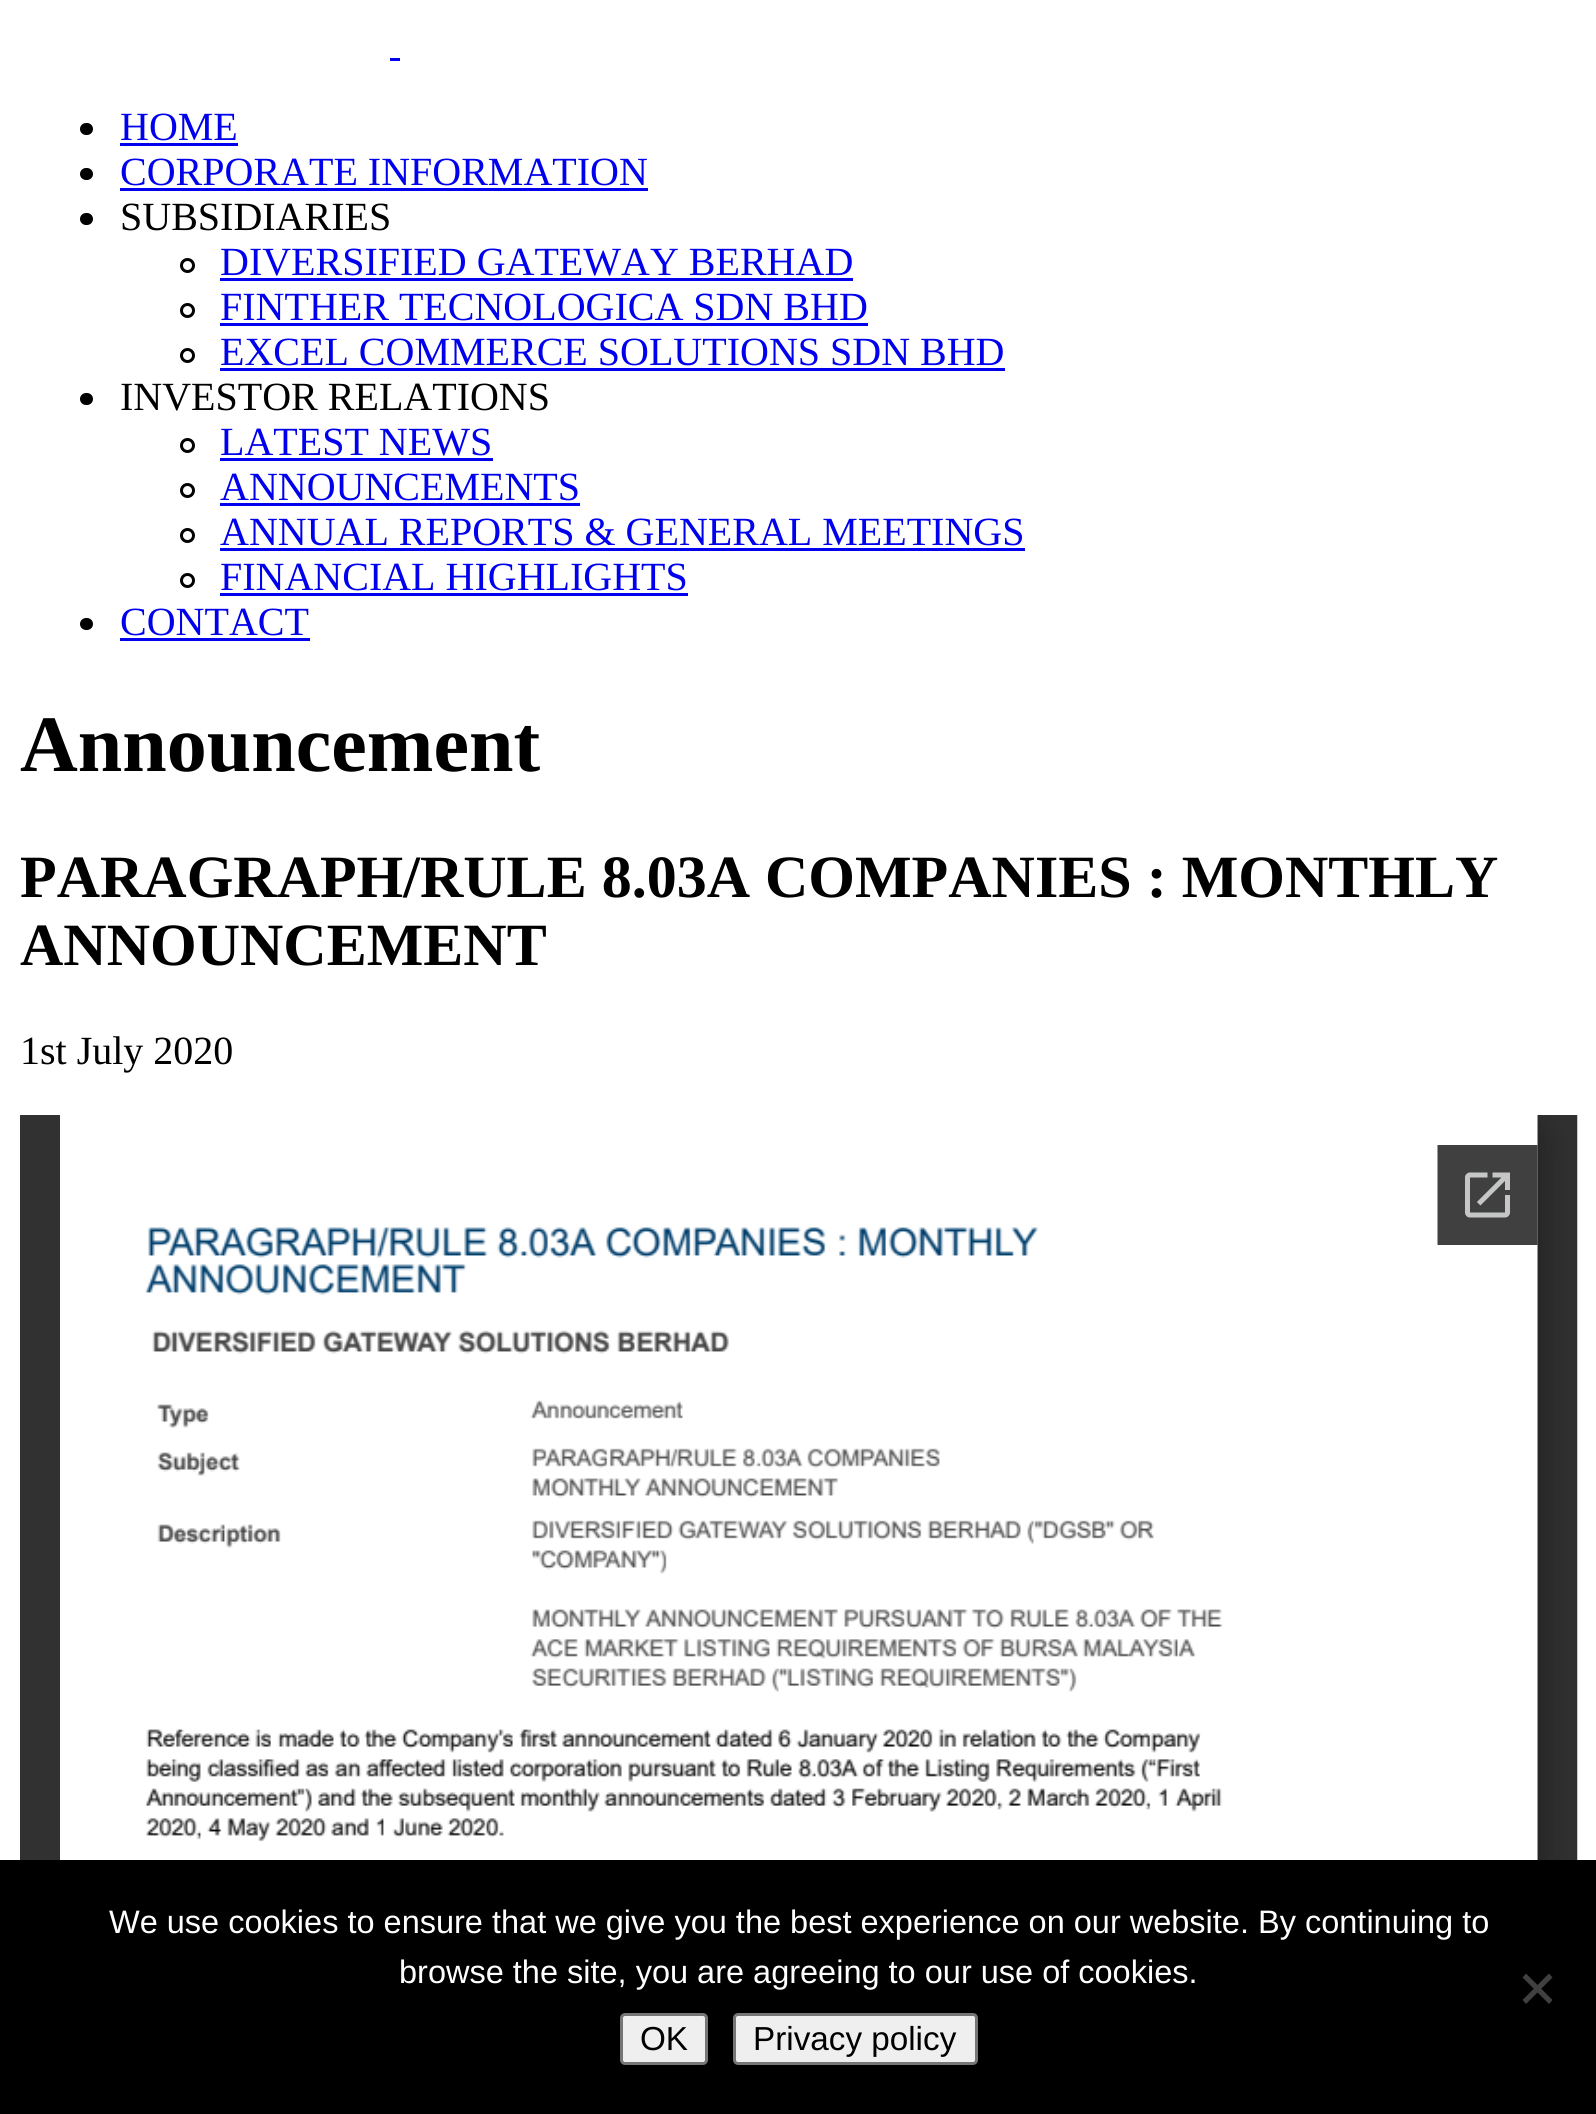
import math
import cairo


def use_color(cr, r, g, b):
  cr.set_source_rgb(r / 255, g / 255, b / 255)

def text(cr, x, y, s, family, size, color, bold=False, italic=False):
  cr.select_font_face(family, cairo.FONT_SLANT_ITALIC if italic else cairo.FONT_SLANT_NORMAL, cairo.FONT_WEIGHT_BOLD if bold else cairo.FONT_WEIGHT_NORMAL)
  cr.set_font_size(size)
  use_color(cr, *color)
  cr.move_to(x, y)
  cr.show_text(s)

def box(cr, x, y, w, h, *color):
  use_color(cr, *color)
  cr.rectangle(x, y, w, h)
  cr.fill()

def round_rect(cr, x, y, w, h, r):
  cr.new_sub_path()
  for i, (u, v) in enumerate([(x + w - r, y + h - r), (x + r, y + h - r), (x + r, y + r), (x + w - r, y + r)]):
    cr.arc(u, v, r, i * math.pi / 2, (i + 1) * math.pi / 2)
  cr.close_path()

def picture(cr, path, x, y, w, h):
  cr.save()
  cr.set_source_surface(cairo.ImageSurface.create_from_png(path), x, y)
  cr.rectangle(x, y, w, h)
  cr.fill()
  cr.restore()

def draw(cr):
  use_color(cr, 255, 255, 255)
  cr.paint()
  box(cr, 390, 58, 10, 3, 0, 0, 238)
  use_color(cr, 0, 0, 0)
  round_rect(cr, 80, 123, 13, 12, 6)
  cr.fill()
  box(cr, 120, 143, 118, 3, 0, 0, 238)
  use_color(cr, 0, 0, 0)
  round_rect(cr, 80, 168, 13, 12, 6)
  cr.fill()
  box(cr, 120, 188, 528, 3, 0, 0, 238)
  use_color(cr, 0, 0, 0)
  round_rect(cr, 80, 213, 13, 12, 6)
  cr.fill()
  cr.arc(187.5, 265.5, 6, 0, 2 * math.pi)
  cr.set_line_width(3)
  cr.stroke()
  box(cr, 220, 278, 633, 3, 0, 0, 238)
  cr.arc(187.5, 310.5, 6, 0, 2 * math.pi)
  use_color(cr, 0, 0, 0)
  cr.stroke()
  box(cr, 220, 323, 648, 3, 0, 0, 238)
  cr.arc(187.5, 355.5, 6, 0, 2 * math.pi)
  use_color(cr, 0, 0, 0)
  cr.stroke()
  box(cr, 220, 368, 785, 3, 0, 0, 238)
  use_color(cr, 0, 0, 0)
  round_rect(cr, 80, 393, 13, 12, 6)
  cr.fill()
  cr.arc(187.5, 445.5, 6, 0, 2 * math.pi)
  cr.stroke()
  box(cr, 220, 458, 273, 3, 0, 0, 238)
  cr.arc(187.5, 490.5, 6, 0, 2 * math.pi)
  use_color(cr, 0, 0, 0)
  cr.stroke()
  box(cr, 220, 503, 360, 3, 0, 0, 238)
  cr.arc(187.5, 535.5, 6, 0, 2 * math.pi)
  use_color(cr, 0, 0, 0)
  cr.stroke()
  box(cr, 220, 548, 805, 3, 0, 0, 238)
  cr.arc(187.5, 580.5, 6, 0, 2 * math.pi)
  use_color(cr, 0, 0, 0)
  cr.stroke()
  box(cr, 220, 593, 468, 3, 0, 0, 238)
  use_color(cr, 0, 0, 0)
  round_rect(cr, 80, 618, 13, 12, 6)
  cr.fill()
  box(cr, 120, 638, 190, 3, 0, 0, 238)
  picture(cr, "img_01.png", 20, 1115, 1558, 745)
  box(cr, 0, 1860, 1596, 254, 0, 0, 0)
  use_color(cr, 64, 64, 64)
  cr.new_path()
  cr.move_to(1549, 1973.5)
  cr.line_to(1552.5, 1977.5)
  cr.line_to(1526, 2004)
  cr.line_to(1522.5, 2000)
  cr.close_path()
  cr.fill()
  cr.new_path()
  cr.move_to(1522.5, 1977.5)
  cr.line_to(1526, 1973.5)
  cr.line_to(1552.5, 2000)
  cr.line_to(1549, 2004)
  cr.close_path()
  cr.fill()
  use_color(cr, 239, 239, 239)
  round_rect(cr, 621.5, 2014.5, 85, 49, 3.5)
  cr.fill_preserve()
  use_color(cr, 118, 118, 118)
  cr.stroke()
  use_color(cr, 239, 239, 239)
  round_rect(cr, 734.5, 2014.5, 242, 49, 3.5)
  cr.fill_preserve()
  use_color(cr, 118, 118, 118)
  cr.stroke()
  text(cr, 120, 140, "HOME", "Liberation Serif", 40, (0, 0, 238))
  text(cr, 120, 185, "CORPORATE INFORMATION", "Liberation Serif", 40, (0, 0, 238))
  text(cr, 120, 230, "SUBSIDIARIES", "Liberation Serif", 40, (0, 0, 0))
  text(cr, 220, 275, "DIVERSIFIED GATEWAY BERHAD", "Liberation Serif", 40, (0, 0, 238))
  text(cr, 220, 320, "FINTHER TECNOLOGICA SDN BHD", "Liberation Serif", 40, (0, 0, 238))
  text(cr, 220, 365, "EXCEL COMMERCE SOLUTIONS SDN BHD", "Liberation Serif", 40, (0, 0, 238))
  text(cr, 120, 410, "INVESTOR RELATIONS", "Liberation Serif", 40, (0, 0, 0))
  text(cr, 220, 455, "LATEST NEWS", "Liberation Serif", 40, (0, 0, 238))
  text(cr, 220, 500, "ANNOUNCEMENTS", "Liberation Serif", 40, (0, 0, 238))
  text(cr, 220, 545, "ANNUAL REPORTS & GENERAL MEETINGS", "Liberation Serif", 40, (0, 0, 238))
  text(cr, 220, 590, "FINANCIAL HIGHLIGHTS", "Liberation Serif", 40, (0, 0, 238))
  text(cr, 120, 635, "CONTACT", "Liberation Serif", 40, (0, 0, 238))
  text(cr, 20, 771, "Announcement", "Liberation Serif", 80, (0, 0, 0), bold=True)
  text(cr, 20, 897, "PARAGRAPH/RULE 8.03A COMPANIES : MONTHLY", "Liberation Serif", 60, (0, 0, 0), bold=True)
  text(cr, 20, 965, "ANNOUNCEMENT", "Liberation Serif", 60, (0, 0, 0), bold=True)
  text(cr, 20, 1064, "1st July 2020", "Liberation Serif", 40, (0, 0, 0))
  text(cr, 109, 1933, "We use cookies to ensure that we give you the best experience on our website. By continuing to", "Liberation Sans", 32.5, (255, 255, 255))
  text(cr, 399, 1983, "browse the site, you are agreeing to our use of cookies.", "Liberation Sans", 32.5, (255, 255, 255))
  text(cr, 640, 2050, "OK", "Liberation Sans", 33.25, (0, 0, 0))
  text(cr, 753, 2050, "Privacy policy", "Liberation Sans", 33.25, (0, 0, 0))


surface = cairo.ImageSurface(cairo.FORMAT_RGB24, 1596, 2114)
cr = cairo.Context(surface)
options = cairo.FontOptions()
options.set_hint_metrics(cairo.HINT_METRICS_OFF)
options.set_hint_style(cairo.HINT_STYLE_NONE)
cr.set_font_options(options)
cr.set_miter_limit(4)
draw(cr)
surface.write_to_png("out.png")
